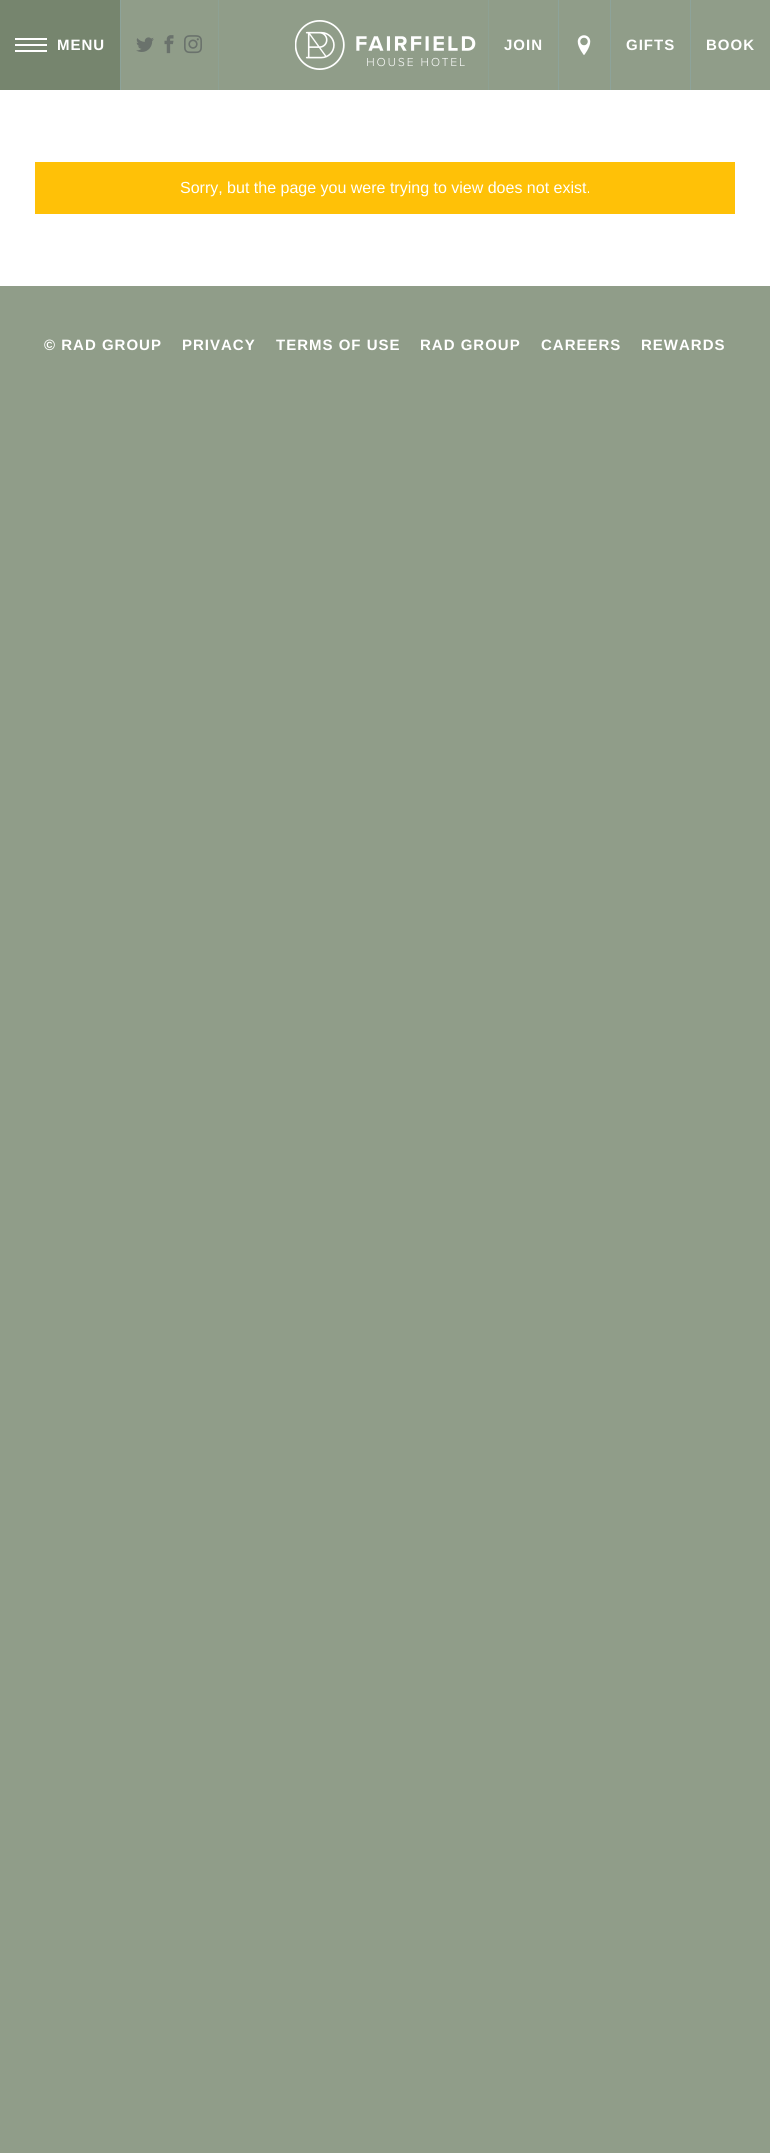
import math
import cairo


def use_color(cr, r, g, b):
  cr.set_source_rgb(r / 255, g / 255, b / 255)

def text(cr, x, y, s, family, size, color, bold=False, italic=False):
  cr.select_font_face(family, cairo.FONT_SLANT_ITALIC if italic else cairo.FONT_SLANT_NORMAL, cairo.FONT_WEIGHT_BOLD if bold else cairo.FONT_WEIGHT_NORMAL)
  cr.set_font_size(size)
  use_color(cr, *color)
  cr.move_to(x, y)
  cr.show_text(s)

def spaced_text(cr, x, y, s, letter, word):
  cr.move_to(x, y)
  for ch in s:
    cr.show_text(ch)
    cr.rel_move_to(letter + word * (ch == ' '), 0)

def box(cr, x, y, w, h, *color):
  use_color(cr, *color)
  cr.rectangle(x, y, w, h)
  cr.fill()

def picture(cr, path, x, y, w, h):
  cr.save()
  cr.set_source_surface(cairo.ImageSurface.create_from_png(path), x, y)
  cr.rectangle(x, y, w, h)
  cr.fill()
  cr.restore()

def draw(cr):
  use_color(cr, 144, 157, 137)
  cr.paint()
  box(cr, 0, 0, 120, 90, 118, 133, 110)
  box(cr, 15, 44, 32, 2, 255, 255, 255)
  box(cr, 15, 38, 32, 2, 255, 255, 255)
  box(cr, 15, 50, 32, 2, 255, 255, 255)
  box(cr, 218, 0, 1, 90, 142, 161, 147)
  box(cr, 120, 0, 1, 90, 141, 163, 154)
  picture(cr, "img_01.png", 136, 37, 18, 15)
  picture(cr, "img_02.png", 164, 35, 10, 19)
  picture(cr, "img_03.png", 184, 35, 18, 19)
  picture(cr, "img_04.png", 295, 20, 181, 50)
  box(cr, 488, 0, 1, 90, 142, 161, 147)
  box(cr, 558, 0, 1, 90, 141, 163, 154)
  picture(cr, "img_05.png", 577, 35, 14, 20)
  box(cr, 610, 0, 1, 90, 141, 163, 154)
  box(cr, 690, 0, 1, 90, 141, 163, 154)
  box(cr, 0, 90, 770, 196, 255, 255, 255)
  box(cr, 35, 162, 700, 52, 255, 193, 7)
  cr.select_font_face("Liberation Sans", cairo.FONT_SLANT_NORMAL, cairo.FONT_WEIGHT_BOLD)
  cr.set_font_size(15)
  use_color(cr, 255, 255, 255)
  spaced_text(cr, 57, 50, "MENU", 1, 0)
  spaced_text(cr, 504, 50, "JOIN", 1, 0)
  spaced_text(cr, 626, 50, "GIFTS", 1, 0)
  spaced_text(cr, 706, 50, "BOOK", 1, 0)
  text(cr, 180, 193, "Sorry, but the page you were trying to view does not exist.", "Liberation Sans", 16, (255, 255, 255))
  cr.select_font_face("Liberation Sans", cairo.FONT_SLANT_NORMAL, cairo.FONT_WEIGHT_BOLD)
  cr.set_font_size(15)
  spaced_text(cr, 44, 350, "© RAD GROUP", 1, 0)
  spaced_text(cr, 182, 350, "PRIVACY", 1, 0)
  spaced_text(cr, 276, 350, "TERMS OF USE", 1, 0)
  spaced_text(cr, 420, 350, "RAD GROUP", 1, 0)
  spaced_text(cr, 541, 350, "CAREERS", 1, 0)
  spaced_text(cr, 641, 350, "REWARDS", 1, 0)


surface = cairo.ImageSurface(cairo.FORMAT_RGB24, 770, 2153)
cr = cairo.Context(surface)
options = cairo.FontOptions()
options.set_hint_metrics(cairo.HINT_METRICS_OFF)
options.set_hint_style(cairo.HINT_STYLE_NONE)
cr.set_font_options(options)
cr.set_miter_limit(4)
draw(cr)
surface.write_to_png("out.png")
